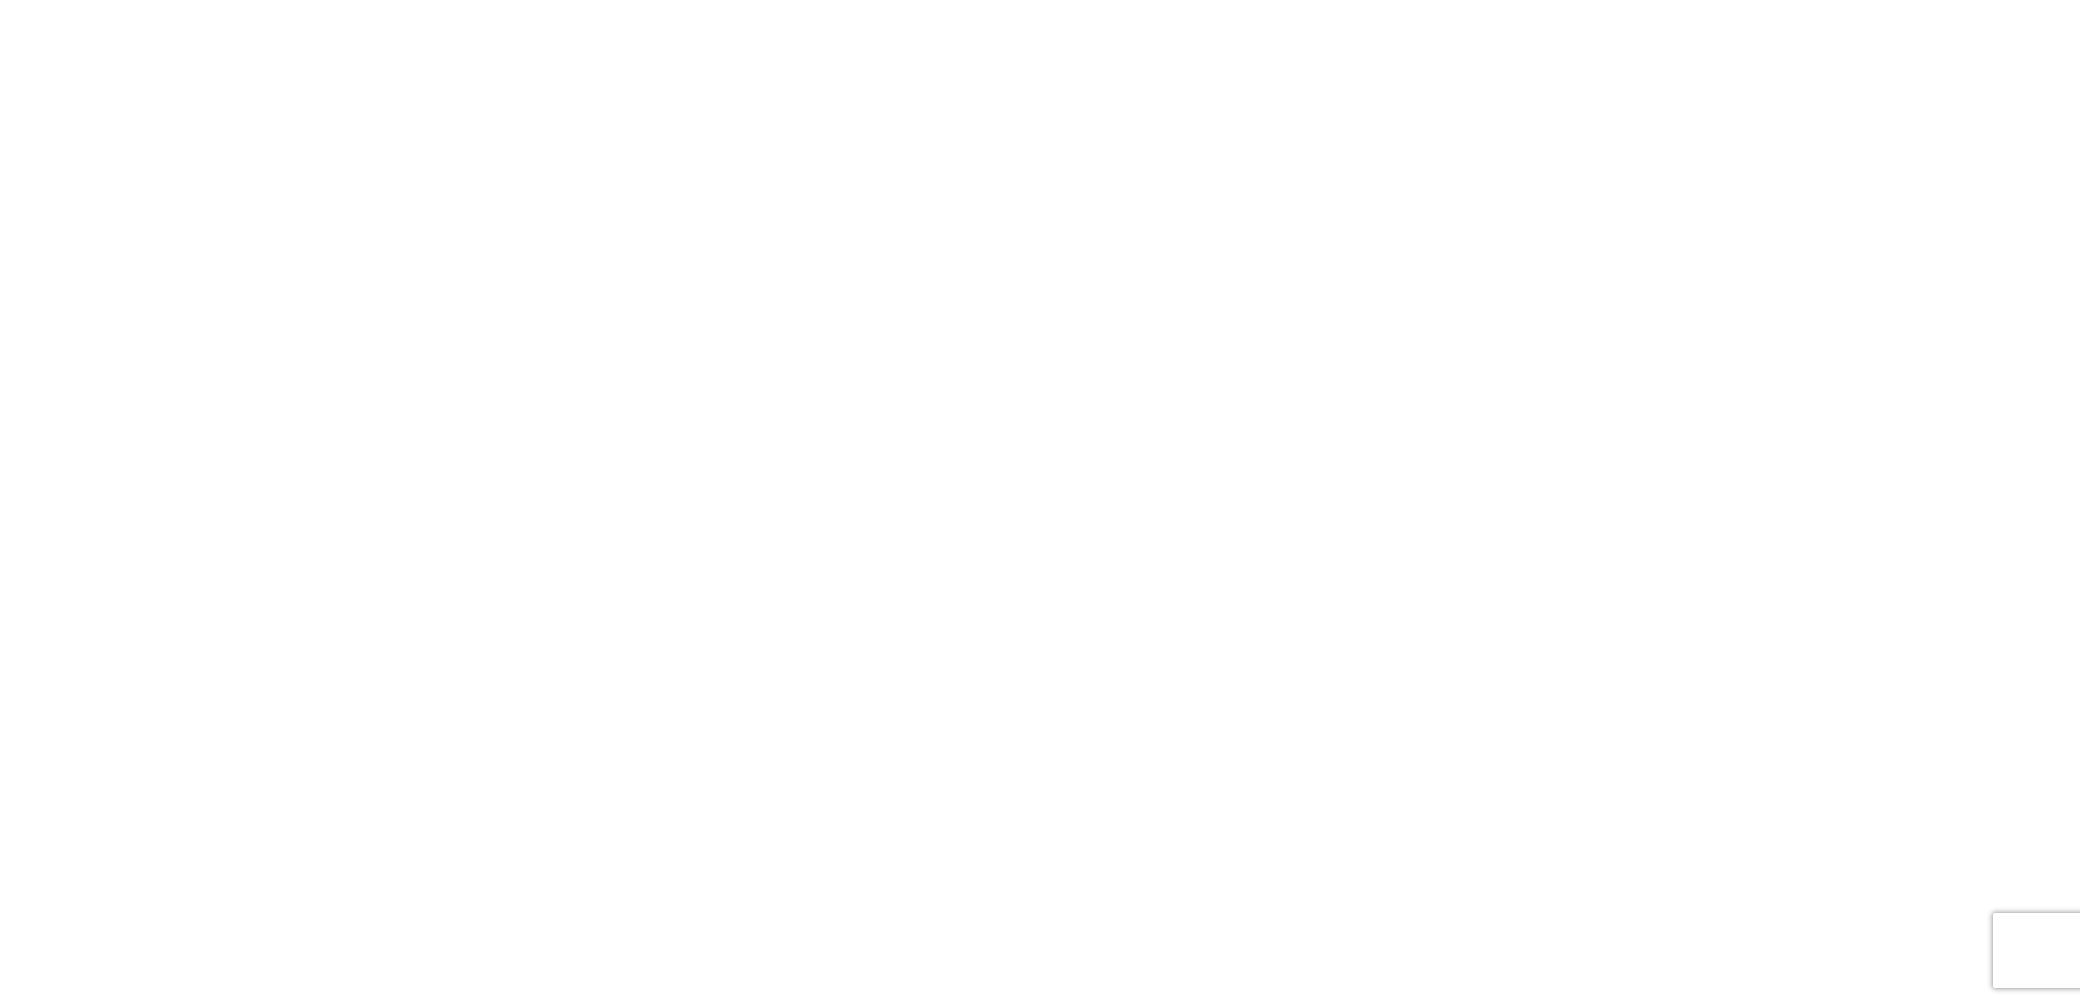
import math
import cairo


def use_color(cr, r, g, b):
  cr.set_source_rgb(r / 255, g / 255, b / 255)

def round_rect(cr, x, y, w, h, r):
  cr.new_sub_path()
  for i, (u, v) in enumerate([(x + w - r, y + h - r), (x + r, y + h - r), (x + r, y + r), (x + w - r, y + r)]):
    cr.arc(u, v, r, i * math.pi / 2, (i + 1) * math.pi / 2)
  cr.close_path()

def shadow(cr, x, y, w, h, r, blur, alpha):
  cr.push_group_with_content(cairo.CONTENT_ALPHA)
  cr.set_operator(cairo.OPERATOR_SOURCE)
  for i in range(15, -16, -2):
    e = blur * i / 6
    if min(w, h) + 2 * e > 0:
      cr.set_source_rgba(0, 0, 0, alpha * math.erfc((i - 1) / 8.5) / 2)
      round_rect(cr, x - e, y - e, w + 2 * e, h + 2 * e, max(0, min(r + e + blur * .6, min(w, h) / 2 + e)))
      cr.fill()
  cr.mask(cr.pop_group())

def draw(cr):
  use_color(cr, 255, 255, 255)
  cr.paint()
  cr.save()
  cr.set_fill_rule(cairo.FILL_RULE_EVEN_ODD)
  cr.new_path()
  cr.move_to(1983, 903)
  cr.line_to(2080, 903)
  cr.line_to(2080, 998)
  cr.line_to(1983, 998)
  cr.close_path()
  cr.move_to(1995.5, 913)
  cr.line_to(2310.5, 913)
  cr.curve_to(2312, 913, 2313, 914, 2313, 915.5)
  cr.line_to(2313, 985.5)
  cr.curve_to(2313, 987, 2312, 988, 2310.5, 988)
  cr.line_to(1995.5, 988)
  cr.curve_to(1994, 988, 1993, 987, 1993, 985.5)
  cr.line_to(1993, 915.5)
  cr.curve_to(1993, 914, 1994, 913, 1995.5, 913)
  cr.close_path()
  cr.clip()
  use_color(cr, 128, 128, 128)
  shadow(cr, 1993, 913, 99, 75, 2.5, 3, 1)
  cr.restore()


surface = cairo.ImageSurface(cairo.FORMAT_RGB24, 2080, 1004)
cr = cairo.Context(surface)
options = cairo.FontOptions()
options.set_hint_metrics(cairo.HINT_METRICS_OFF)
options.set_hint_style(cairo.HINT_STYLE_NONE)
cr.set_font_options(options)
cr.set_miter_limit(4)
draw(cr)
surface.write_to_png("out.png")
